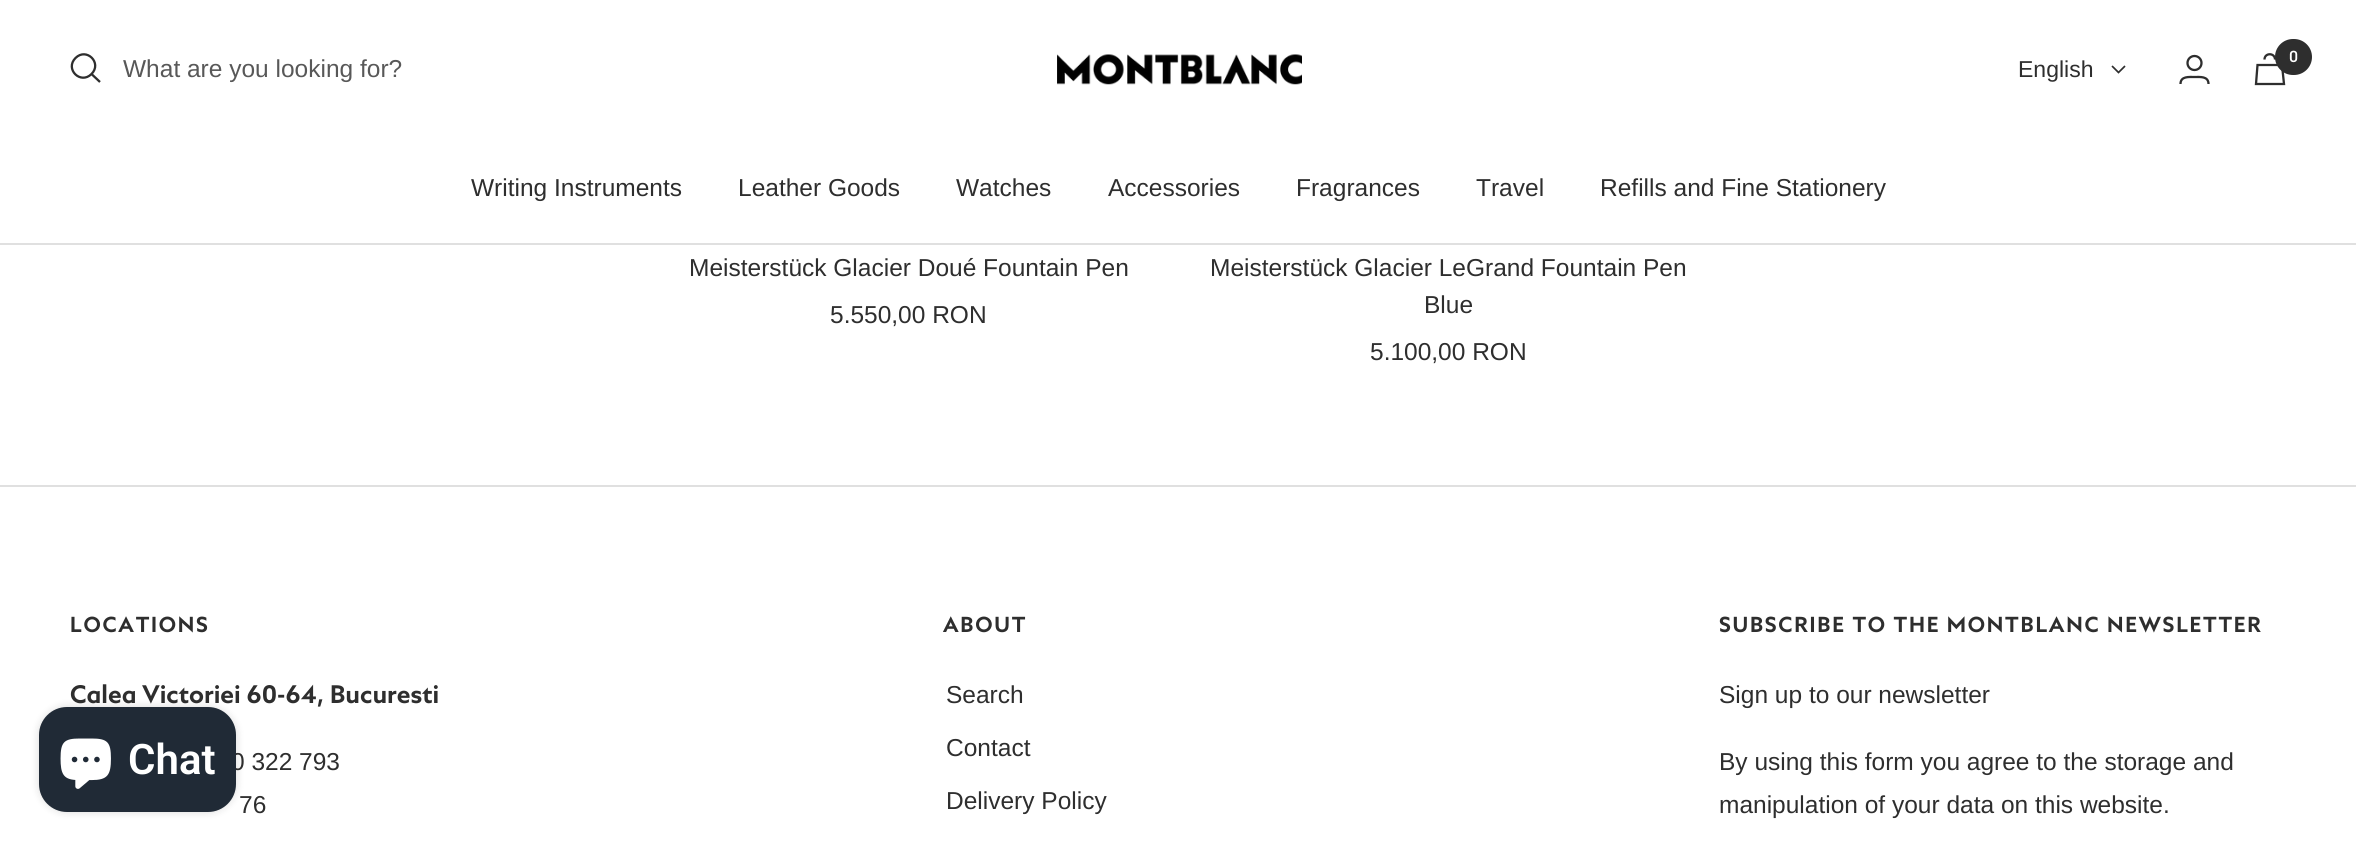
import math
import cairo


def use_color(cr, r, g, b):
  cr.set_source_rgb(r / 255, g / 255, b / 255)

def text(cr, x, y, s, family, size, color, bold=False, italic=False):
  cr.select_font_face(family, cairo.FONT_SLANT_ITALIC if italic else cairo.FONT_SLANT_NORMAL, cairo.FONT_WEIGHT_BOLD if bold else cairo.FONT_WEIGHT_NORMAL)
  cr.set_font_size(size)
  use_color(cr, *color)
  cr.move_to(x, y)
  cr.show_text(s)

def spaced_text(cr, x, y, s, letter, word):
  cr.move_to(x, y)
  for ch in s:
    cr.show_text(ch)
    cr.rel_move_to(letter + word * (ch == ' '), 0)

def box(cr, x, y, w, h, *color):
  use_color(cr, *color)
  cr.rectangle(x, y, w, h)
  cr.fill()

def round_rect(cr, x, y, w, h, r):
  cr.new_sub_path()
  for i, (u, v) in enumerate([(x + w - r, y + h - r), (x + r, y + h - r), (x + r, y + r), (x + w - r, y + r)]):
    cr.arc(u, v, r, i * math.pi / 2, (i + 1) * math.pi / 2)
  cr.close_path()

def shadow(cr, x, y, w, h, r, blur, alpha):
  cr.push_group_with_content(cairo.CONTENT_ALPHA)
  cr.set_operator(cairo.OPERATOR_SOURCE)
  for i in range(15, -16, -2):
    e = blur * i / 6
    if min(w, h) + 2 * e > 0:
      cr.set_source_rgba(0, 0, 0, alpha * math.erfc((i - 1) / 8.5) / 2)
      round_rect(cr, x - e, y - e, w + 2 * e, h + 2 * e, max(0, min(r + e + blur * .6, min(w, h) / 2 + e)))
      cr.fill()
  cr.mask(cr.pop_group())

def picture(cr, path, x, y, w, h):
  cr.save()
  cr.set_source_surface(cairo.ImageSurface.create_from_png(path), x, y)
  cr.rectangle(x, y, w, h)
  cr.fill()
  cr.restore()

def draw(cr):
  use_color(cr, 255, 255, 255)
  cr.paint()
  box(cr, 0, 243, 2356, 2, 224, 224, 224)
  cr.new_path()
  cr.move_to(91.5, 74)
  cr.curve_to(102.5, 63, 86.5, 47, 75.5, 58)
  cr.curve_to(64.5, 69, 80.5, 85, 91.5, 74)
  cr.close_path()
  cr.move_to(91.5, 74)
  cr.line_to(100, 82)
  use_color(cr, 46, 46, 46)
  cr.set_line_width(2.3)
  cr.stroke()
  picture(cr, "img_01.png", 1057, 54, 245, 31)
  cr.arc(2194.5, 63, 7, 0, 2 * math.pi)
  cr.stroke()
  cr.new_path()
  cr.move_to(2180.5, 84)
  cr.curve_to(2180.5, 76, 2189, 77, 2194.5, 77)
  cr.curve_to(2200, 77, 2208.5, 76, 2208.5, 84)
  cr.stroke()
  cr.new_path()
  cr.move_to(2257.5, 65)
  cr.line_to(2282, 65)
  cr.line_to(2284, 84)
  cr.line_to(2256, 84)
  cr.close_path()
  cr.move_to(2275, 59.5)
  cr.curve_to(2275, 52.5, 2264.5, 52.5, 2264.5, 59.5)
  cr.stroke()
  round_rect(cr, 2275, 39, 37, 36, 18)
  cr.fill()
  cr.new_path()
  cr.move_to(2112, 66)
  cr.line_to(2118.5, 72.5)
  cr.line_to(2125, 66)
  cr.set_line_width(1.7)
  cr.stroke()
  box(cr, 0, 485, 2356, 2, 224, 224, 224)
  use_color(cr, 0, 0, 0)
  shadow(cr, 39, 707, 197, 105, 28, 4.5, 0.15)
  text(cr, 123, 77, "What are you looking for?", "Liberation Sans", 24.5, (88, 88, 88))
  text(cr, 2289, 62, "0", "Barlow SemiBold", 16, (255, 255, 255))
  text(cr, 2018, 77, "English", "Liberation Sans", 23, (46, 46, 46))
  text(cr, 471, 196, "Writing Instruments", "Liberation Sans", 24.5, (46, 46, 46))
  text(cr, 738, 196, "Leather Goods", "Liberation Sans", 24.5, (46, 46, 46))
  text(cr, 956, 196, "Watches", "Liberation Sans", 24.5, (46, 46, 46))
  text(cr, 1108, 196, "Accessories", "Liberation Sans", 24.5, (46, 46, 46))
  text(cr, 1296, 196, "Fragrances", "Liberation Sans", 24.5, (46, 46, 46))
  text(cr, 1476, 196, "Travel", "Liberation Sans", 24.5, (46, 46, 46))
  text(cr, 1600, 196, "Refills and Fine Stationery", "Liberation Sans", 24.5, (46, 46, 46))
  text(cr, 689, 276, "Meisterstück Glacier Doué Fountain Pen", "Liberation Sans", 24.5, (46, 46, 46))
  text(cr, 830, 323, "5.550,00 RON", "Liberation Sans", 24.5, (46, 46, 46))
  text(cr, 1210, 276, "Meisterstück Glacier LeGrand Fountain Pen", "Liberation Sans", 24.5, (46, 46, 46))
  text(cr, 1424, 313, "Blue", "Liberation Sans", 24.5, (46, 46, 46))
  text(cr, 1370, 360, "5.100,00 RON", "Liberation Sans", 24.5, (46, 46, 46))
  cr.select_font_face("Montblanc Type", cairo.FONT_SLANT_NORMAL, cairo.FONT_WEIGHT_BOLD)
  cr.set_font_size(21)
  spaced_text(cr, 70, 632, "LOCATIONS", 1.75, 0)
  text(cr, 70, 703, "Calea Victoriei 60-64, Bucuresti", "Montblanc Type", 24.5, (46, 46, 46), bold=True)
  text(cr, 231, 770, "0 322 793", "Liberation Sans", 24.5, (46, 46, 46))
  text(cr, 239, 813, "76", "Liberation Sans", 24.5, (46, 46, 46))
  cr.select_font_face("Montblanc Type", cairo.FONT_SLANT_NORMAL, cairo.FONT_WEIGHT_BOLD)
  cr.set_font_size(21)
  spaced_text(cr, 943, 632, "ABOUT", 1.75, 0)
  text(cr, 946, 703, "Search", "Liberation Sans", 24.5, (46, 46, 46))
  text(cr, 946, 756, "Contact", "Liberation Sans", 24.5, (46, 46, 46))
  text(cr, 946, 809, "Delivery Policy", "Liberation Sans", 24.5, (46, 46, 46))
  cr.select_font_face("Montblanc Type", cairo.FONT_SLANT_NORMAL, cairo.FONT_WEIGHT_BOLD)
  cr.set_font_size(21)
  spaced_text(cr, 1719, 632, "SUBSCRIBE TO THE MONTBLANC NEWSLETTER", 1.75, 0)
  text(cr, 1719, 703, "Sign up to our newsletter", "Liberation Sans", 24.5, (46, 46, 46))
  text(cr, 1719, 770, "By using this form you agree to the storage and", "Liberation Sans", 24.5, (46, 46, 46))
  text(cr, 1719, 813, "manipulation of your data on this website.", "Liberation Sans", 24.5, (46, 46, 46))
  use_color(cr, 32, 42, 54)
  round_rect(cr, 39, 707, 197, 105, 28)
  cr.fill()
  picture(cr, "img_02.png", 60, 738, 51, 51)
  text(cr, 128, 774, "Chat", "Roboto SemiBold", 42, (255, 255, 255))


surface = cairo.ImageSurface(cairo.FORMAT_RGB24, 2356, 848)
cr = cairo.Context(surface)
options = cairo.FontOptions()
options.set_hint_metrics(cairo.HINT_METRICS_OFF)
options.set_hint_style(cairo.HINT_STYLE_NONE)
cr.set_font_options(options)
cr.set_miter_limit(4)
draw(cr)
surface.write_to_png("out.png")
